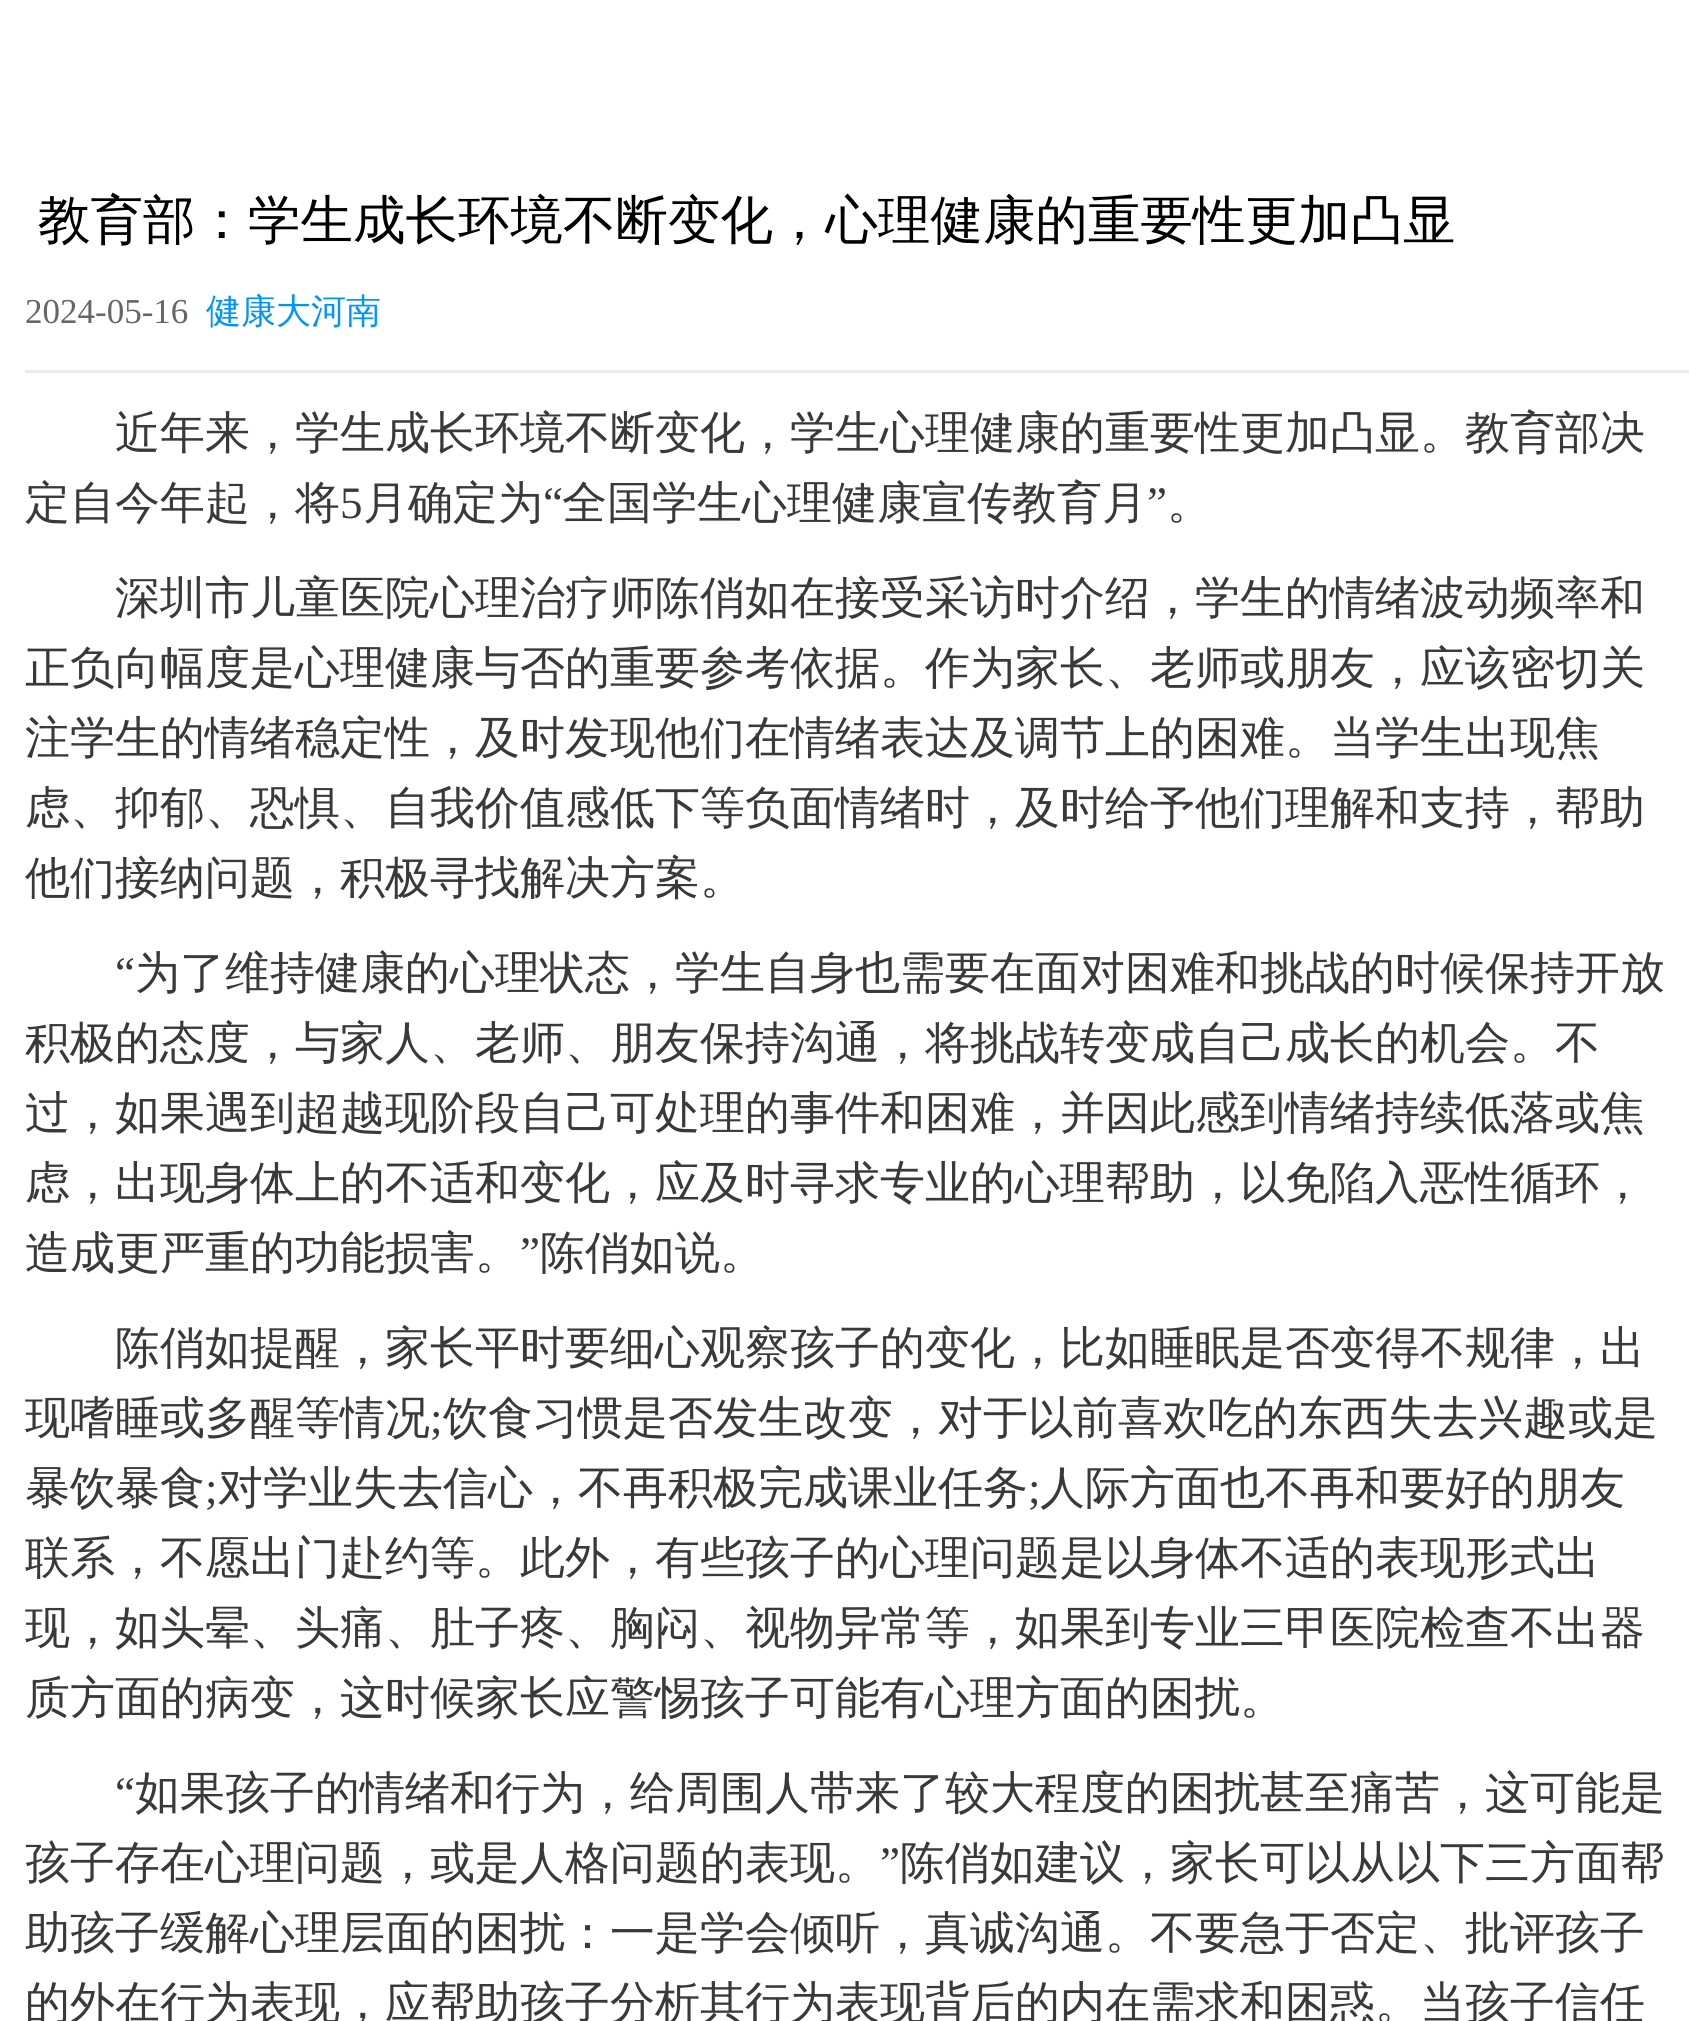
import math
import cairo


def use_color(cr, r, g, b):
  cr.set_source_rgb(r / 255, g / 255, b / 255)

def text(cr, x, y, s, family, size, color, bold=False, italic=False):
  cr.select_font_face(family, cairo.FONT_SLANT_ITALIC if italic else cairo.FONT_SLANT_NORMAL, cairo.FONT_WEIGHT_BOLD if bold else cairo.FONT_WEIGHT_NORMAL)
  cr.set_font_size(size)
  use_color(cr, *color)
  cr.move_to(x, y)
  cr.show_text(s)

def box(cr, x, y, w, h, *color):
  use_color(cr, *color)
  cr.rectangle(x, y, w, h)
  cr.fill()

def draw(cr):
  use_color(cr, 255, 255, 255)
  cr.paint()
  box(cr, 25, 370, 1664, 3, 234, 234, 234)
  text(cr, 38, 238, "教育部：学生成长环境不断变化，心理健康的重要性更加凸显", "WenQuanYi Zen Hei Medium", 52.5, (0, 0, 0))
  text(cr, 25, 323, "2024-05-16", "Liberation Serif", 35, (102, 102, 102))
  text(cr, 206, 323, "健康大河南", "WenQuanYi Zen Hei Medium", 35, (0, 148, 255))
  text(cr, 115, 448, "近年来，学生成长环境不断变化，学生心理健康的重要性更加凸显。教育部决", "WenQuanYi Zen Hei Medium", 45, (57, 57, 57))
  text(cr, 25, 518, "定自今年起，将", "WenQuanYi Zen Hei Medium", 45, (57, 57, 57))
  text(cr, 340, 518, "5", "Liberation Serif", 45, (57, 57, 57))
  text(cr, 363, 518, "月确定为", "WenQuanYi Zen Hei Medium", 45, (57, 57, 57))
  text(cr, 543, 518, "“", "Liberation Serif", 45, (57, 57, 57))
  text(cr, 562, 518, "全国学生心理健康宣传教育月", "WenQuanYi Zen Hei Medium", 45, (57, 57, 57))
  text(cr, 1147, 518, "”", "Liberation Serif", 45, (57, 57, 57))
  text(cr, 1167, 518, "。", "WenQuanYi Zen Hei Medium", 45, (57, 57, 57))
  text(cr, 115, 613, "深圳市儿童医院心理治疗师陈俏如在接受采访时介绍，学生的情绪波动频率和", "WenQuanYi Zen Hei Medium", 45, (57, 57, 57))
  text(cr, 25, 683, "正负向幅度是心理健康与否的重要参考依据。作为家长、老师或朋友，应该密切关", "WenQuanYi Zen Hei Medium", 45, (57, 57, 57))
  text(cr, 25, 753, "注学生的情绪稳定性，及时发现他们在情绪表达及调节上的困难。当学生出现焦", "WenQuanYi Zen Hei Medium", 45, (57, 57, 57))
  text(cr, 25, 823, "虑、抑郁、恐惧、自我价值感低下等负面情绪时，及时给予他们理解和支持，帮助", "WenQuanYi Zen Hei Medium", 45, (57, 57, 57))
  text(cr, 25, 893, "他们接纳问题，积极寻找解决方案。", "WenQuanYi Zen Hei Medium", 45, (57, 57, 57))
  text(cr, 115, 988, "“", "Liberation Serif", 45, (57, 57, 57))
  text(cr, 135, 988, "为了维持健康的心理状态，学生自身也需要在面对困难和挑战的时候保持开放", "WenQuanYi Zen Hei Medium", 45, (57, 57, 57))
  text(cr, 25, 1058, "积极的态度，与家人、老师、朋友保持沟通，将挑战转变成自己成长的机会。不", "WenQuanYi Zen Hei Medium", 45, (57, 57, 57))
  text(cr, 25, 1128, "过，如果遇到超越现阶段自己可处理的事件和困难，并因此感到情绪持续低落或焦", "WenQuanYi Zen Hei Medium", 45, (57, 57, 57))
  text(cr, 25, 1198, "虑，出现身体上的不适和变化，应及时寻求专业的心理帮助，以免陷入恶性循环，", "WenQuanYi Zen Hei Medium", 45, (57, 57, 57))
  text(cr, 25, 1268, "造成更严重的功能损害。", "WenQuanYi Zen Hei Medium", 45, (57, 57, 57))
  text(cr, 520, 1268, "”", "Liberation Serif", 45, (57, 57, 57))
  text(cr, 540, 1268, "陈俏如说。", "WenQuanYi Zen Hei Medium", 45, (57, 57, 57))
  text(cr, 115, 1363, "陈俏如提醒，家长平时要细心观察孩子的变化，比如睡眠是否变得不规律，出", "WenQuanYi Zen Hei Medium", 45, (57, 57, 57))
  text(cr, 25, 1433, "现嗜睡或多醒等情况", "WenQuanYi Zen Hei Medium", 45, (57, 57, 57))
  text(cr, 430, 1433, ";", "Liberation Serif", 45, (57, 57, 57))
  text(cr, 443, 1433, "饮食习惯是否发生改变，对于以前喜欢吃的东西失去兴趣或是", "WenQuanYi Zen Hei Medium", 45, (57, 57, 57))
  text(cr, 25, 1503, "暴饮暴食", "WenQuanYi Zen Hei Medium", 45, (57, 57, 57))
  text(cr, 205, 1503, ";", "Liberation Serif", 45, (57, 57, 57))
  text(cr, 218, 1503, "对学业失去信心，不再积极完成课业任务", "WenQuanYi Zen Hei Medium", 45, (57, 57, 57))
  text(cr, 1028, 1503, ";", "Liberation Serif", 45, (57, 57, 57))
  text(cr, 1040, 1503, "人际方面也不再和要好的朋友", "WenQuanYi Zen Hei Medium", 45, (57, 57, 57))
  text(cr, 25, 1573, "联系，不愿出门赴约等。此外，有些孩子的心理问题是以身体不适的表现形式出", "WenQuanYi Zen Hei Medium", 45, (57, 57, 57))
  text(cr, 25, 1643, "现，如头晕、头痛、肚子疼、胸闷、视物异常等，如果到专业三甲医院检查不出器", "WenQuanYi Zen Hei Medium", 45, (57, 57, 57))
  text(cr, 25, 1713, "质方面的病变，这时候家长应警惕孩子可能有心理方面的困扰。", "WenQuanYi Zen Hei Medium", 45, (57, 57, 57))
  text(cr, 115, 1808, "“", "Liberation Serif", 45, (57, 57, 57))
  text(cr, 135, 1808, "如果孩子的情绪和行为，给周围人带来了较大程度的困扰甚至痛苦，这可能是", "WenQuanYi Zen Hei Medium", 45, (57, 57, 57))
  text(cr, 25, 1878, "孩子存在心理问题，或是人格问题的表现。", "WenQuanYi Zen Hei Medium", 45, (57, 57, 57))
  text(cr, 880, 1878, "”", "Liberation Serif", 45, (57, 57, 57))
  text(cr, 900, 1878, "陈俏如建议，家长可以从以下三方面帮", "WenQuanYi Zen Hei Medium", 45, (57, 57, 57))
  text(cr, 25, 1948, "助孩子缓解心理层面的困扰：一是学会倾听，真诚沟通。不要急于否定、批评孩子", "WenQuanYi Zen Hei Medium", 45, (57, 57, 57))
  text(cr, 25, 2018, "的外在行为表现，应帮助孩子分析其行为表现背后的内在需求和困惑。当孩子信任", "WenQuanYi Zen Hei Medium", 45, (57, 57, 57))


surface = cairo.ImageSurface(cairo.FORMAT_RGB24, 1689, 2021)
cr = cairo.Context(surface)
options = cairo.FontOptions()
options.set_hint_metrics(cairo.HINT_METRICS_OFF)
options.set_hint_style(cairo.HINT_STYLE_NONE)
cr.set_font_options(options)
cr.set_miter_limit(4)
draw(cr)
surface.write_to_png("out.png")
